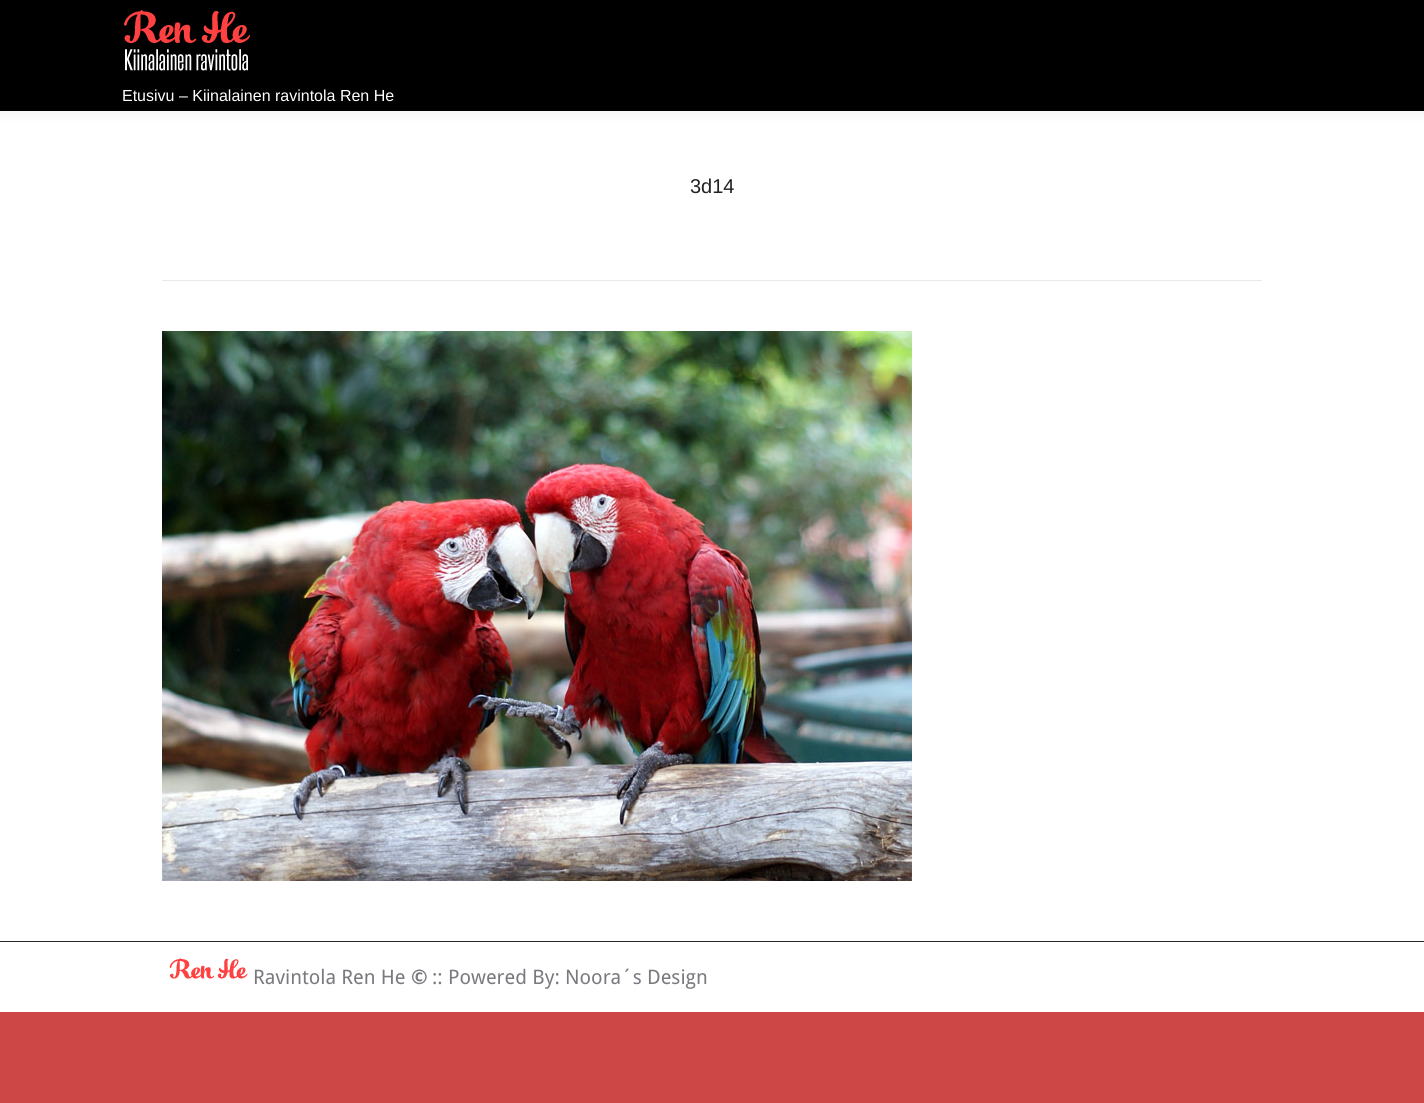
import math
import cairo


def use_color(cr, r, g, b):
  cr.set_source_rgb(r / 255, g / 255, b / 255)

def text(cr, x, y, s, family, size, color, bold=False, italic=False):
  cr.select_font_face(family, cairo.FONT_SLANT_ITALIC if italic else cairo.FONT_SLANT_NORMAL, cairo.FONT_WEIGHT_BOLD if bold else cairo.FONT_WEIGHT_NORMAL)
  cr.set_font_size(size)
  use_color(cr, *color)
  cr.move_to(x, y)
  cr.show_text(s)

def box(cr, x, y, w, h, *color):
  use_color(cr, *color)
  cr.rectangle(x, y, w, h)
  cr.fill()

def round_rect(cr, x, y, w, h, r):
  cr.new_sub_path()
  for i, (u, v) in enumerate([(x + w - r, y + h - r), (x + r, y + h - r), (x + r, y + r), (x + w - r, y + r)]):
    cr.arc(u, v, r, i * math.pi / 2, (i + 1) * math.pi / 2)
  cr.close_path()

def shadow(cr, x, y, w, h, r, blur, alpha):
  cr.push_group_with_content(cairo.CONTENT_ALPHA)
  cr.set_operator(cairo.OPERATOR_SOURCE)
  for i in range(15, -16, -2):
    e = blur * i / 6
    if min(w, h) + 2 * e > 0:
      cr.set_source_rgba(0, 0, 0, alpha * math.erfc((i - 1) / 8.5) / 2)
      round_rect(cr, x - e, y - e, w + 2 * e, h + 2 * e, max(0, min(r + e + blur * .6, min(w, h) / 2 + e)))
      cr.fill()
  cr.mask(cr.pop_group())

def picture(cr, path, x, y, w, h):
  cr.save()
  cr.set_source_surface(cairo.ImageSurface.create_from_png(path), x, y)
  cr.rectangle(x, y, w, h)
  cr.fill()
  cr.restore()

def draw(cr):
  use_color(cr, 206, 71, 71)
  cr.paint()
  box(cr, 0, 111, 1424, 901, 255, 255, 255)
  use_color(cr, 0, 0, 0)
  shadow(cr, -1, -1, 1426, 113, 0, 7.5, 0.07)
  box(cr, 0, 0, 1424, 111, 0, 0, 0)
  picture(cr, "img_01.png", 124, 10, 126, 61)
  box(cr, 162, 280, 1100, 1, 233, 233, 233)
  picture(cr, "img_02.png", 162, 331, 750, 550)
  box(cr, 0, 941, 1424, 1, 34, 36, 40)
  picture(cr, "img_03.png", 169, 958, 79, 21)
  text(cr, 122, 101, "Etusivu – Kiinalainen ravintola Ren He", "Liberation Sans", 16, (255, 255, 255))
  text(cr, 690, 193, "3d14", "Liberation Sans", 20, (34, 34, 34))
  text(cr, 253, 984, "Ravintola Ren He", "Droid Sans", 20, (121, 122, 127))
  text(cr, 411, 984, "©", "Droid Sans", 20, (121, 122, 127), bold=True)
  text(cr, 432, 984, ":: Powered By: Noora´s Design", "Droid Sans", 20, (121, 122, 127))


surface = cairo.ImageSurface(cairo.FORMAT_RGB24, 1424, 1103)
cr = cairo.Context(surface)
options = cairo.FontOptions()
options.set_hint_metrics(cairo.HINT_METRICS_OFF)
options.set_hint_style(cairo.HINT_STYLE_NONE)
cr.set_font_options(options)
cr.set_miter_limit(4)
draw(cr)
surface.write_to_png("out.png")
